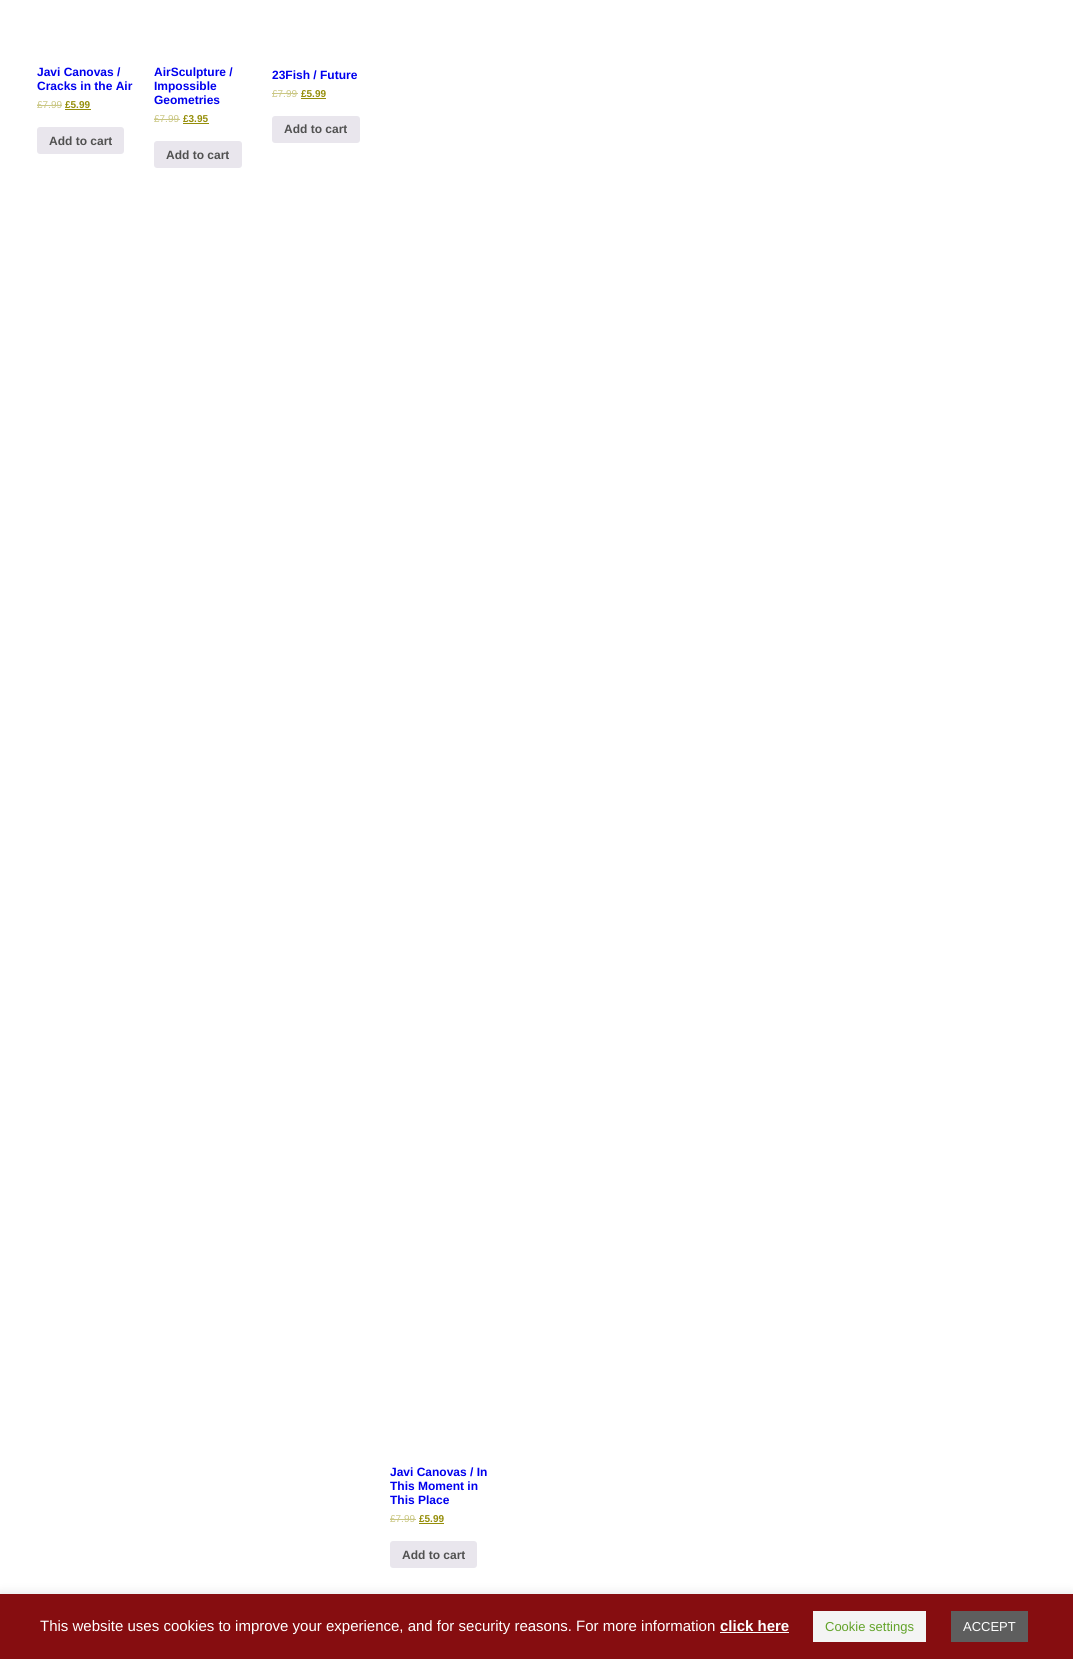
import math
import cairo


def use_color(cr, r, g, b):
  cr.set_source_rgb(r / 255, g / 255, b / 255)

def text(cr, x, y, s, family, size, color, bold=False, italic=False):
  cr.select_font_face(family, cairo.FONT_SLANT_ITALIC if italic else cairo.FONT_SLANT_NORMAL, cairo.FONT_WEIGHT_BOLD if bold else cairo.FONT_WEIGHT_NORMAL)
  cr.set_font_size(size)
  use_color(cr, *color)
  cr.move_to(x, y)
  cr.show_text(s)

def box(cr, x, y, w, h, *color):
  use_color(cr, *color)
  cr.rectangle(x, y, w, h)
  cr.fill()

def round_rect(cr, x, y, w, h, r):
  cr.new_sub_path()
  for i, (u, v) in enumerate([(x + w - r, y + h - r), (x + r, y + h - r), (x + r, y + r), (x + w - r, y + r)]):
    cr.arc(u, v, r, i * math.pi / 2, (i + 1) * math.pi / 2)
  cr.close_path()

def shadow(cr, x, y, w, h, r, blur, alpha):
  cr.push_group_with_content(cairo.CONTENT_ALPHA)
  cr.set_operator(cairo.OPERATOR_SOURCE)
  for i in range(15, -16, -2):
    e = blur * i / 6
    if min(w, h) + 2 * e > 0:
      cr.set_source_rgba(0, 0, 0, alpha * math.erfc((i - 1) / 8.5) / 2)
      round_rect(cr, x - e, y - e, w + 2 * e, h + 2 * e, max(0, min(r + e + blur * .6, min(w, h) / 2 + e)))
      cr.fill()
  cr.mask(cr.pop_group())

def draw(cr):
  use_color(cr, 255, 255, 255)
  cr.paint()
  box(cr, 37, 105, 25, 1, 202, 199, 132)
  box(cr, 65, 109, 26, 1, 149, 142, 9)
  use_color(cr, 233, 230, 237)
  round_rect(cr, 37, 127, 87, 27, 3)
  cr.fill()
  box(cr, 154, 119, 26, 1, 202, 199, 132)
  box(cr, 183, 123, 26, 1, 149, 142, 9)
  use_color(cr, 233, 230, 237)
  round_rect(cr, 154, 141, 88, 27, 3)
  cr.fill()
  box(cr, 272, 93, 26, 1, 202, 199, 132)
  box(cr, 301, 98, 25, 1, 149, 142, 9)
  use_color(cr, 233, 230, 237)
  round_rect(cr, 272, 116, 88, 27, 3)
  cr.fill()
  box(cr, 390, 1519, 26, 1, 202, 199, 132)
  box(cr, 419, 1523, 25, 1, 149, 142, 9)
  use_color(cr, 233, 230, 237)
  round_rect(cr, 390, 1541, 87, 27, 3)
  cr.fill()
  use_color(cr, 172, 171, 171)
  shadow(cr, 0, 1593, 1073, 65, 0, 5, 0.3)
  box(cr, 0, 1594, 1073, 65, 134, 13, 16)
  box(cr, 720, 1632, 69, 1, 255, 255, 255)
  box(cr, 813, 1611, 113, 31, 244, 244, 244)
  box(cr, 951, 1611, 77, 31, 94, 94, 94)
  text(cr, 37, 76, "Javi Canovas /", "Liberation Sans", 12, (0, 0, 238), bold=True)
  text(cr, 37, 90, "Cracks in the Air", "Liberation Sans", 12, (0, 0, 238), bold=True)
  text(cr, 37, 108, "£7.99", "Liberation Sans", 10, (202, 199, 132))
  text(cr, 65, 108, "£5.99", "Liberation Sans", 10, (149, 142, 9), bold=True)
  text(cr, 49, 145, "Add to cart", "Liberation Sans", 12, (81, 81, 81), bold=True)
  text(cr, 154, 76, "AirSculpture /", "Liberation Sans", 12, (0, 0, 238), bold=True)
  text(cr, 154, 90, "Impossible", "Liberation Sans", 12, (0, 0, 238), bold=True)
  text(cr, 154, 104, "Geometries", "Liberation Sans", 12, (0, 0, 238), bold=True)
  text(cr, 154, 122, "£7.99", "Liberation Sans", 10, (202, 199, 132))
  text(cr, 183, 122, "£3.95", "Liberation Sans", 10, (149, 142, 9), bold=True)
  text(cr, 166, 159, "Add to cart", "Liberation Sans", 12, (81, 81, 81), bold=True)
  text(cr, 272, 79, "23Fish / Future", "Liberation Sans", 12, (0, 0, 238), bold=True)
  text(cr, 272, 97, "£7.99", "Liberation Sans", 10, (202, 199, 132))
  text(cr, 301, 97, "£5.99", "Liberation Sans", 10, (149, 142, 9), bold=True)
  text(cr, 284, 133, "Add to cart", "Liberation Sans", 12, (81, 81, 81), bold=True)
  text(cr, 390, 1476, "Javi Canovas / In", "Liberation Sans", 12, (0, 0, 238), bold=True)
  text(cr, 390, 1490, "This Moment in", "Liberation Sans", 12, (0, 0, 238), bold=True)
  text(cr, 390, 1504, "This Place", "Liberation Sans", 12, (0, 0, 238), bold=True)
  text(cr, 390, 1522, "£7.99", "Liberation Sans", 10, (202, 199, 132))
  text(cr, 419, 1522, "£5.99", "Liberation Sans", 10, (149, 142, 9), bold=True)
  text(cr, 402, 1559, "Add to cart", "Liberation Sans", 12, (81, 81, 81), bold=True)
  text(cr, 40, 1631, "This website uses cookies to improve your experience, and for security reasons. For more information", "Liberation Sans", 15, (255, 255, 255))
  text(cr, 720, 1631, "click here", "Liberation Sans", 15, (255, 255, 255), bold=True)
  text(cr, 825, 1631, "Cookie settings", "Liberation Sans", 13, (98, 163, 41))
  text(cr, 963, 1631, "ACCEPT", "Liberation Sans", 13, (255, 255, 255))


surface = cairo.ImageSurface(cairo.FORMAT_RGB24, 1073, 1659)
cr = cairo.Context(surface)
options = cairo.FontOptions()
options.set_hint_metrics(cairo.HINT_METRICS_OFF)
options.set_hint_style(cairo.HINT_STYLE_NONE)
cr.set_font_options(options)
cr.set_miter_limit(4)
draw(cr)
surface.write_to_png("out.png")
